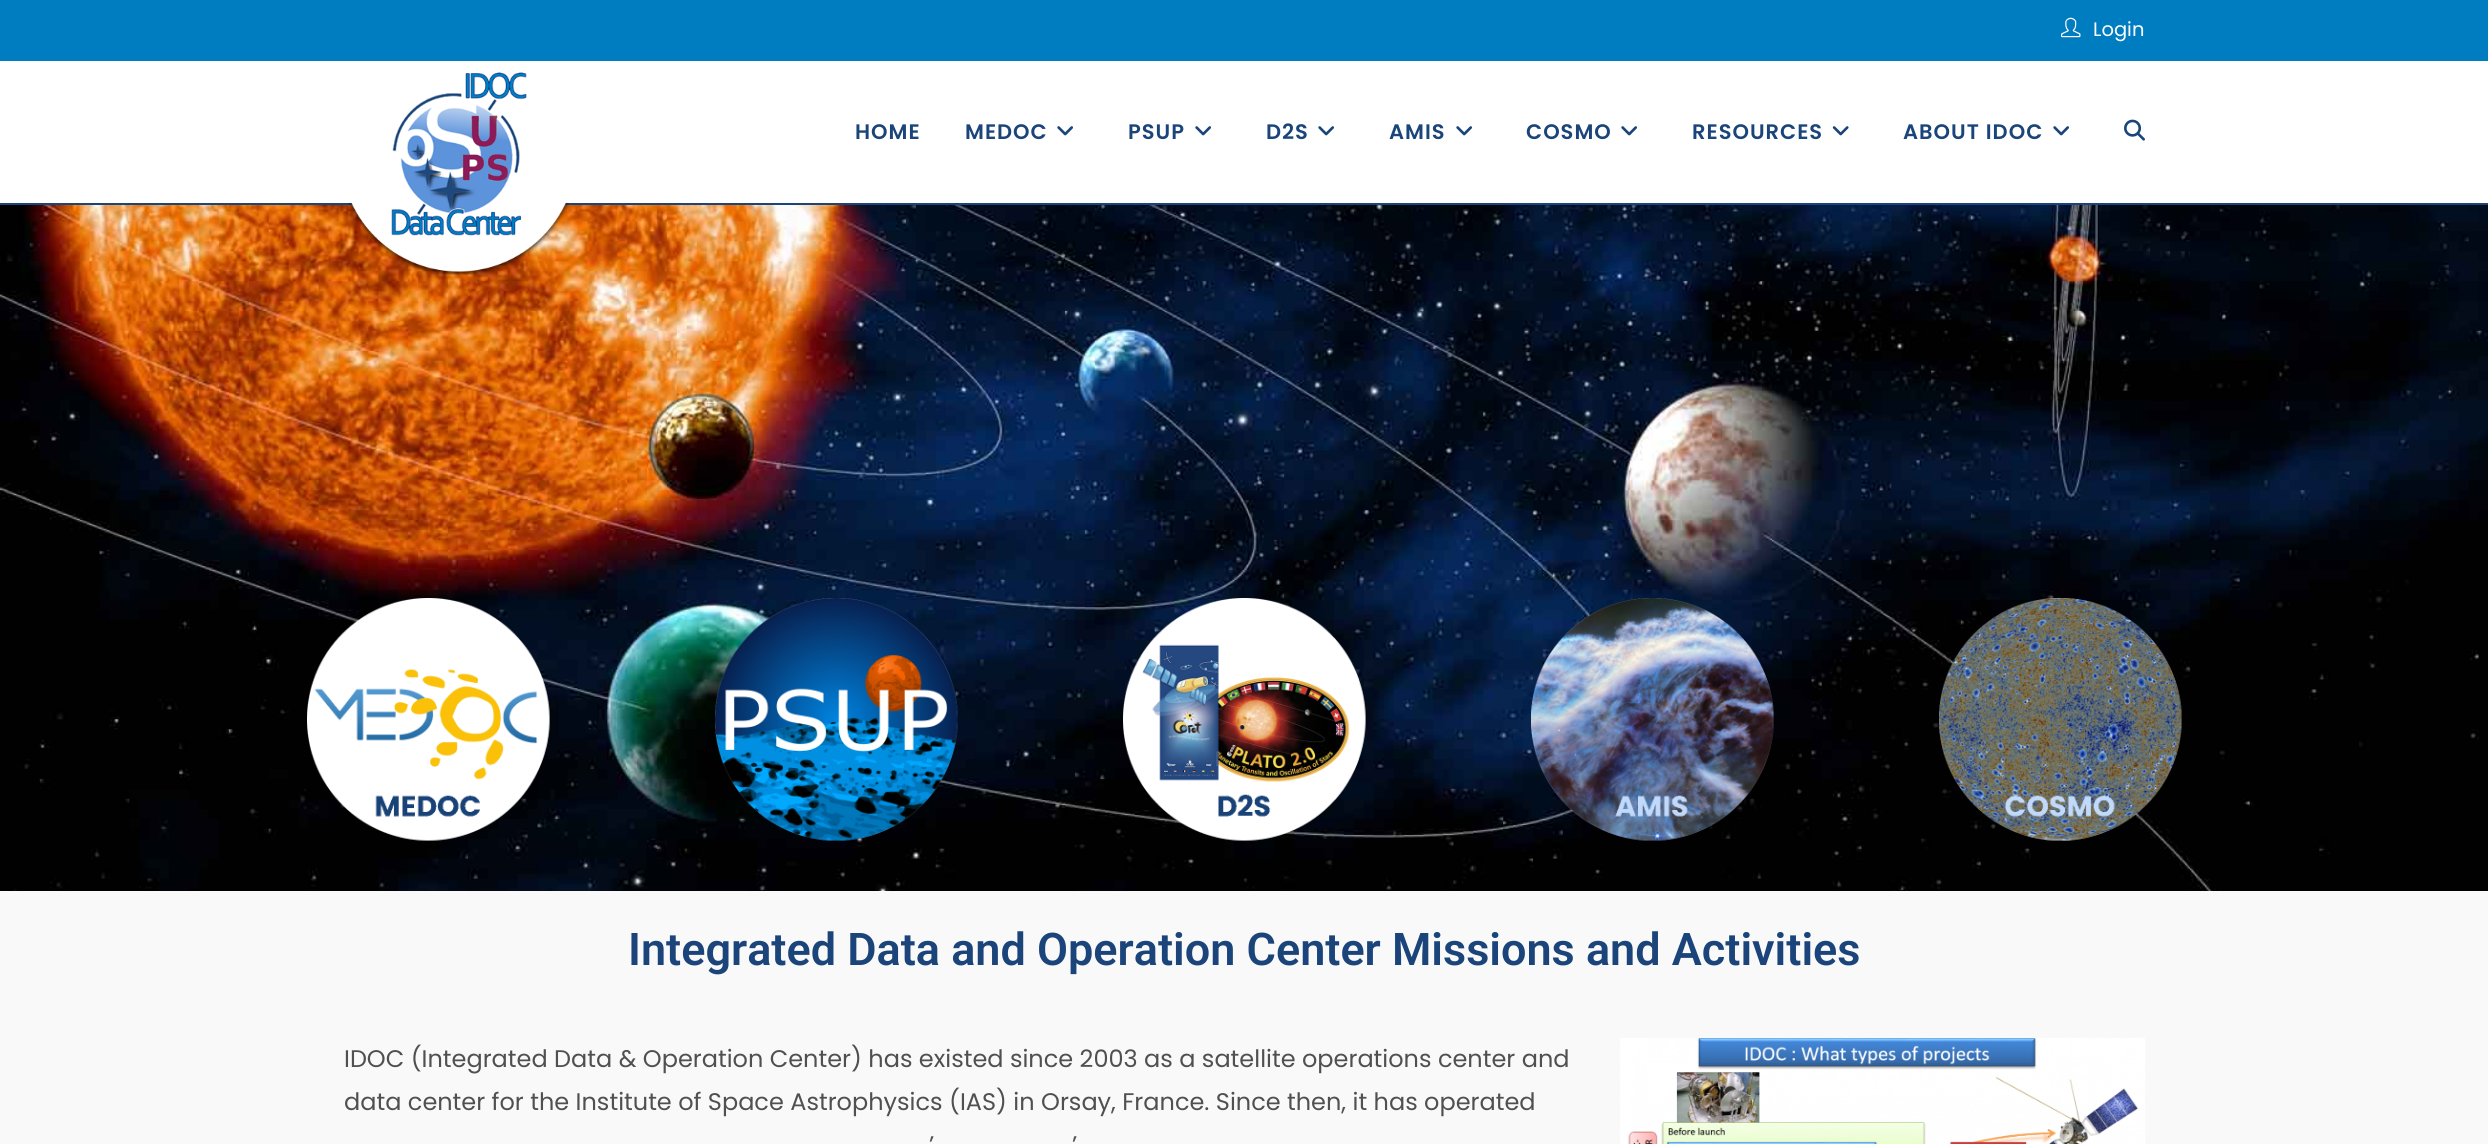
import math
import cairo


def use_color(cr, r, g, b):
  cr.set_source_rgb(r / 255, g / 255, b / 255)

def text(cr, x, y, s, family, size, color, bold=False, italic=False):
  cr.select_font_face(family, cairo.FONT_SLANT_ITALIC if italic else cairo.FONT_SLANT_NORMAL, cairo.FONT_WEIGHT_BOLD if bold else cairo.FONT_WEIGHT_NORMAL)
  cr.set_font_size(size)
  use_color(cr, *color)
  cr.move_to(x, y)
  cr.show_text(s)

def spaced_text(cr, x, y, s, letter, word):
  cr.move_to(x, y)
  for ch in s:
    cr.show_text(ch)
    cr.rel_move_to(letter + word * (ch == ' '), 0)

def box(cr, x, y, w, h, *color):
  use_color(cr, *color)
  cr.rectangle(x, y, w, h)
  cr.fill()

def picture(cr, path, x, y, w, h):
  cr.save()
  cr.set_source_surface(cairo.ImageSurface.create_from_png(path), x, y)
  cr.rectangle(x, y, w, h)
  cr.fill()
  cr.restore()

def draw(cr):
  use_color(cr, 249, 249, 249)
  cr.paint()
  box(cr, 0, 0, 2488, 61, 0, 124, 193)
  picture(cr, "img_01.png", 2061, 17, 20, 21)
  box(cr, 0, 61, 2488, 142, 255, 255, 255)
  box(cr, 0, 203, 2488, 2, 27, 68, 121)
  picture(cr, "img_06.png", 0, 205, 2488, 686)
  picture(cr, "img_02.png", 347, 72, 223, 203)
  picture(cr, "img_03.png", 1057, 126, 16, 10)
  picture(cr, "img_03.png", 1195, 126, 16, 10)
  picture(cr, "img_03.png", 1318, 126, 16, 10)
  picture(cr, "img_03.png", 1456, 126, 16, 10)
  picture(cr, "img_03.png", 1621, 126, 16, 10)
  picture(cr, "img_04.png", 1832, 126, 17, 10)
  picture(cr, "img_03.png", 2053, 126, 16, 10)
  picture(cr, "img_05.png", 2124, 119, 21, 22)
  picture(cr, "img_07.png", 307, 598, 243, 243)
  picture(cr, "img_08.png", 715, 598, 243, 243)
  picture(cr, "img_09.png", 1123, 598, 243, 243)
  picture(cr, "img_10.png", 1531, 598, 243, 243)
  picture(cr, "img_11.png", 1939, 598, 243, 243)
  picture(cr, "img_12.png", 1620, 1038, 525, 106)
  text(cr, 2093, 36, "Login", "Poppins", 19.5, (255, 255, 255))
  cr.select_font_face("Poppins SemiBold")
  cr.set_font_size(21)
  use_color(cr, 27, 69, 122)
  spaced_text(cr, 855, 139, "HOME", 1, 0)
  spaced_text(cr, 965, 139, "MEDOC", 1, 0)
  spaced_text(cr, 1128, 139, "PSUP", 1, 0)
  spaced_text(cr, 1266, 139, "D2S", 1, 0)
  spaced_text(cr, 1389, 139, "AMIS", 1, 0)
  spaced_text(cr, 1526, 139, "COSMO", 1, 0)
  spaced_text(cr, 1692, 139, "RESOURCES", 1, 0)
  spaced_text(cr, 1903, 139, "ABOUT IDOC", 1, 0)
  text(cr, 628, 965, "Integrated Data and Operation Center Missions and Activities", "Roboto SemiBold", 45, (27, 69, 122))
  text(cr, 344, 1067, "IDOC (Integrated Data & Operation Center) has existed since 2003 as a satellite operations center and", "Poppins", 24, (80, 80, 80))
  text(cr, 344, 1110, "data center for the Institute of Space Astrophysics (IAS) in Orsay, France. Since then, it has operated", "Poppins", 24, (80, 80, 80))
  text(cr, 929, 1153, "’", "Poppins", 24, (80, 80, 80))
  text(cr, 1072, 1153, "’", "Poppins", 24, (80, 80, 80))


surface = cairo.ImageSurface(cairo.FORMAT_RGB24, 2488, 1144)
cr = cairo.Context(surface)
options = cairo.FontOptions()
options.set_hint_metrics(cairo.HINT_METRICS_OFF)
options.set_hint_style(cairo.HINT_STYLE_NONE)
cr.set_font_options(options)
cr.set_miter_limit(4)
draw(cr)
surface.write_to_png("out.png")
